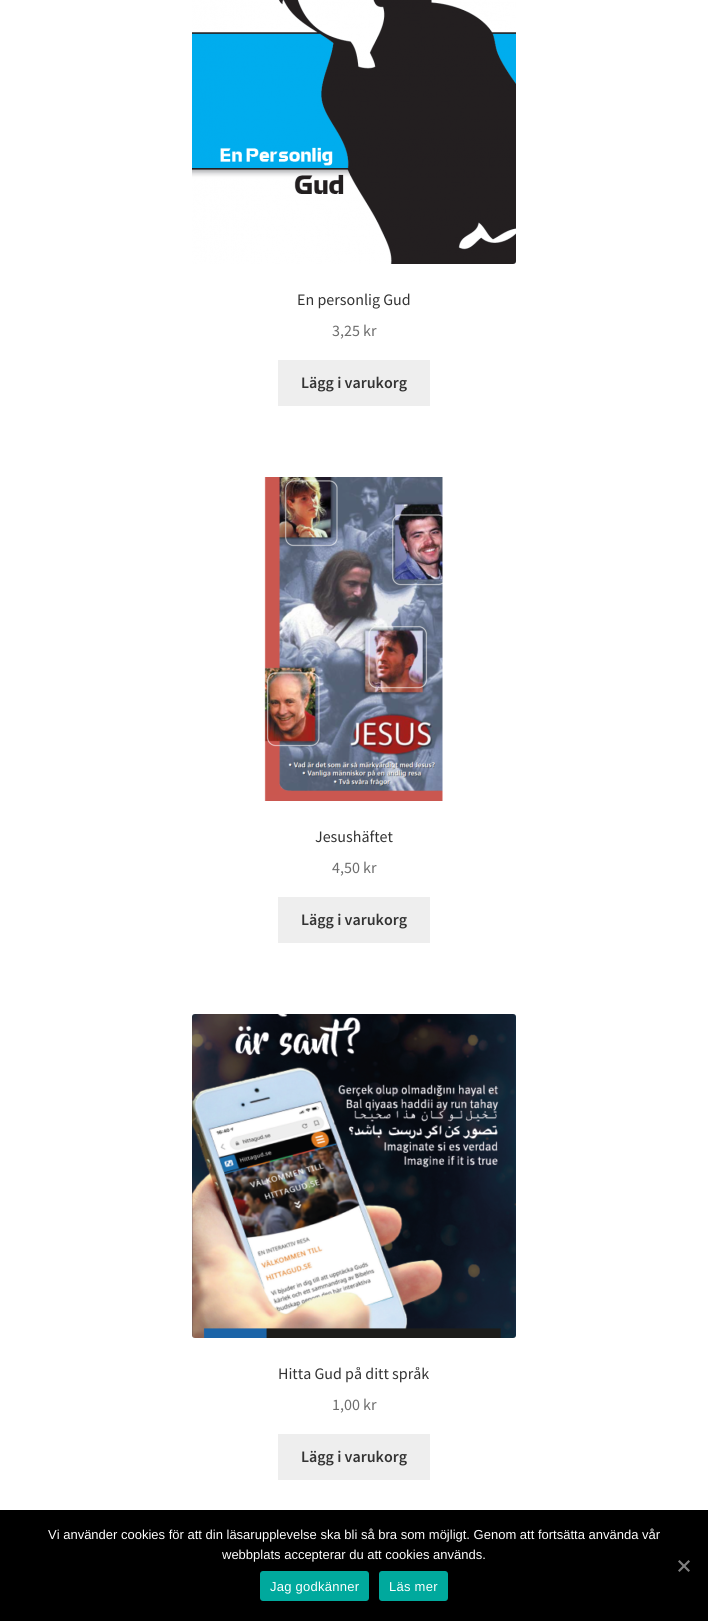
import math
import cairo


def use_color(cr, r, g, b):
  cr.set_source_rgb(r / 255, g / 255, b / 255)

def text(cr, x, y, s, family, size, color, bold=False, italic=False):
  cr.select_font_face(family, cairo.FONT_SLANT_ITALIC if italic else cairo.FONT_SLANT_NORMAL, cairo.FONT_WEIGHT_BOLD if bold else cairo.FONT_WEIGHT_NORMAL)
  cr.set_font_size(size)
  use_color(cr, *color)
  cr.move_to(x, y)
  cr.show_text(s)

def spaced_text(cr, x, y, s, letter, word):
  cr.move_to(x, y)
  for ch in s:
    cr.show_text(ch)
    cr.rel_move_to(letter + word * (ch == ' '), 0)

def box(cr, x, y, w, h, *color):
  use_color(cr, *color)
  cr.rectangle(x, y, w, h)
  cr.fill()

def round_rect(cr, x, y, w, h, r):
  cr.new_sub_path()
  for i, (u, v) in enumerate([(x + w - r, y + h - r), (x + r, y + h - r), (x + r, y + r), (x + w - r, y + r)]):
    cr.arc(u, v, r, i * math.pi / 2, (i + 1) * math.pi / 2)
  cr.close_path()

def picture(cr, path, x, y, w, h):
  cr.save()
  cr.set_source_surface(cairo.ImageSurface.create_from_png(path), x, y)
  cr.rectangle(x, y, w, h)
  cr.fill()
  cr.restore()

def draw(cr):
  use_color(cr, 255, 255, 255)
  cr.paint()
  picture(cr, "img_01.png", 192, 0, 324, 264)
  box(cr, 278, 360, 152, 46, 238, 238, 238)
  picture(cr, "img_02.png", 264, 477, 179, 324)
  box(cr, 278, 897, 152, 46, 238, 238, 238)
  picture(cr, "img_03.png", 192, 1014, 324, 324)
  box(cr, 278, 1434, 152, 46, 238, 238, 238)
  box(cr, 0, 1510, 708, 111, 0, 0, 0)
  use_color(cr, 128, 128, 128)
  cr.new_path()
  cr.move_to(688.5, 1560)
  cr.line_to(690, 1561.5)
  cr.line_to(679.5, 1572)
  cr.line_to(678, 1570.5)
  cr.close_path()
  cr.fill()
  cr.new_path()
  cr.move_to(678, 1561.5)
  cr.line_to(679.5, 1560)
  cr.line_to(690, 1570.5)
  cr.line_to(688.5, 1572)
  cr.close_path()
  cr.fill()
  use_color(cr, 0, 169, 157)
  round_rect(cr, 260, 1571, 109, 30, 3)
  cr.fill()
  round_rect(cr, 379, 1571, 69, 30, 3)
  cr.fill()
  text(cr, 297, 305, "En personlig Gud", "Source Sans Pro", 16, (51, 51, 51))
  text(cr, 332, 336, "3,25 kr", "Source Sans Pro", 16, (109, 109, 109))
  text(cr, 301, 388, "Lägg i varukorg", "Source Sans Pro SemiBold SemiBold", 16, (51, 51, 51))
  text(cr, 315, 842, "Jesushäftet", "Source Sans Pro", 16, (51, 51, 51))
  text(cr, 332, 873, "4,50 kr", "Source Sans Pro", 16, (109, 109, 109))
  text(cr, 301, 925, "Lägg i varukorg", "Source Sans Pro SemiBold SemiBold", 16, (51, 51, 51))
  text(cr, 278, 1379, "Hitta Gud på ditt språk", "Source Sans Pro", 16, (51, 51, 51))
  text(cr, 332, 1410, "1,00 kr", "Source Sans Pro", 16, (109, 109, 109))
  text(cr, 301, 1462, "Lägg i varukorg", "Source Sans Pro SemiBold SemiBold", 16, (51, 51, 51))
  text(cr, 48, 1539, "Vi använder cookies för att din läsarupplevelse ska bli så bra som möjligt. Genom att fortsätta använda vår", "Liberation Sans", 13, (255, 255, 255))
  text(cr, 222, 1559, "webbplats accepterar du att cookies används.", "Liberation Sans", 13, (255, 255, 255))
  spaced_text(cr, 270, 1591, "Jag godkänner", 0.25, 0)
  spaced_text(cr, 389, 1591, "Läs mer", 0.25, 0)


surface = cairo.ImageSurface(cairo.FORMAT_RGB24, 708, 1621)
cr = cairo.Context(surface)
options = cairo.FontOptions()
options.set_hint_metrics(cairo.HINT_METRICS_OFF)
options.set_hint_style(cairo.HINT_STYLE_NONE)
cr.set_font_options(options)
cr.set_miter_limit(4)
draw(cr)
surface.write_to_png("out.png")
